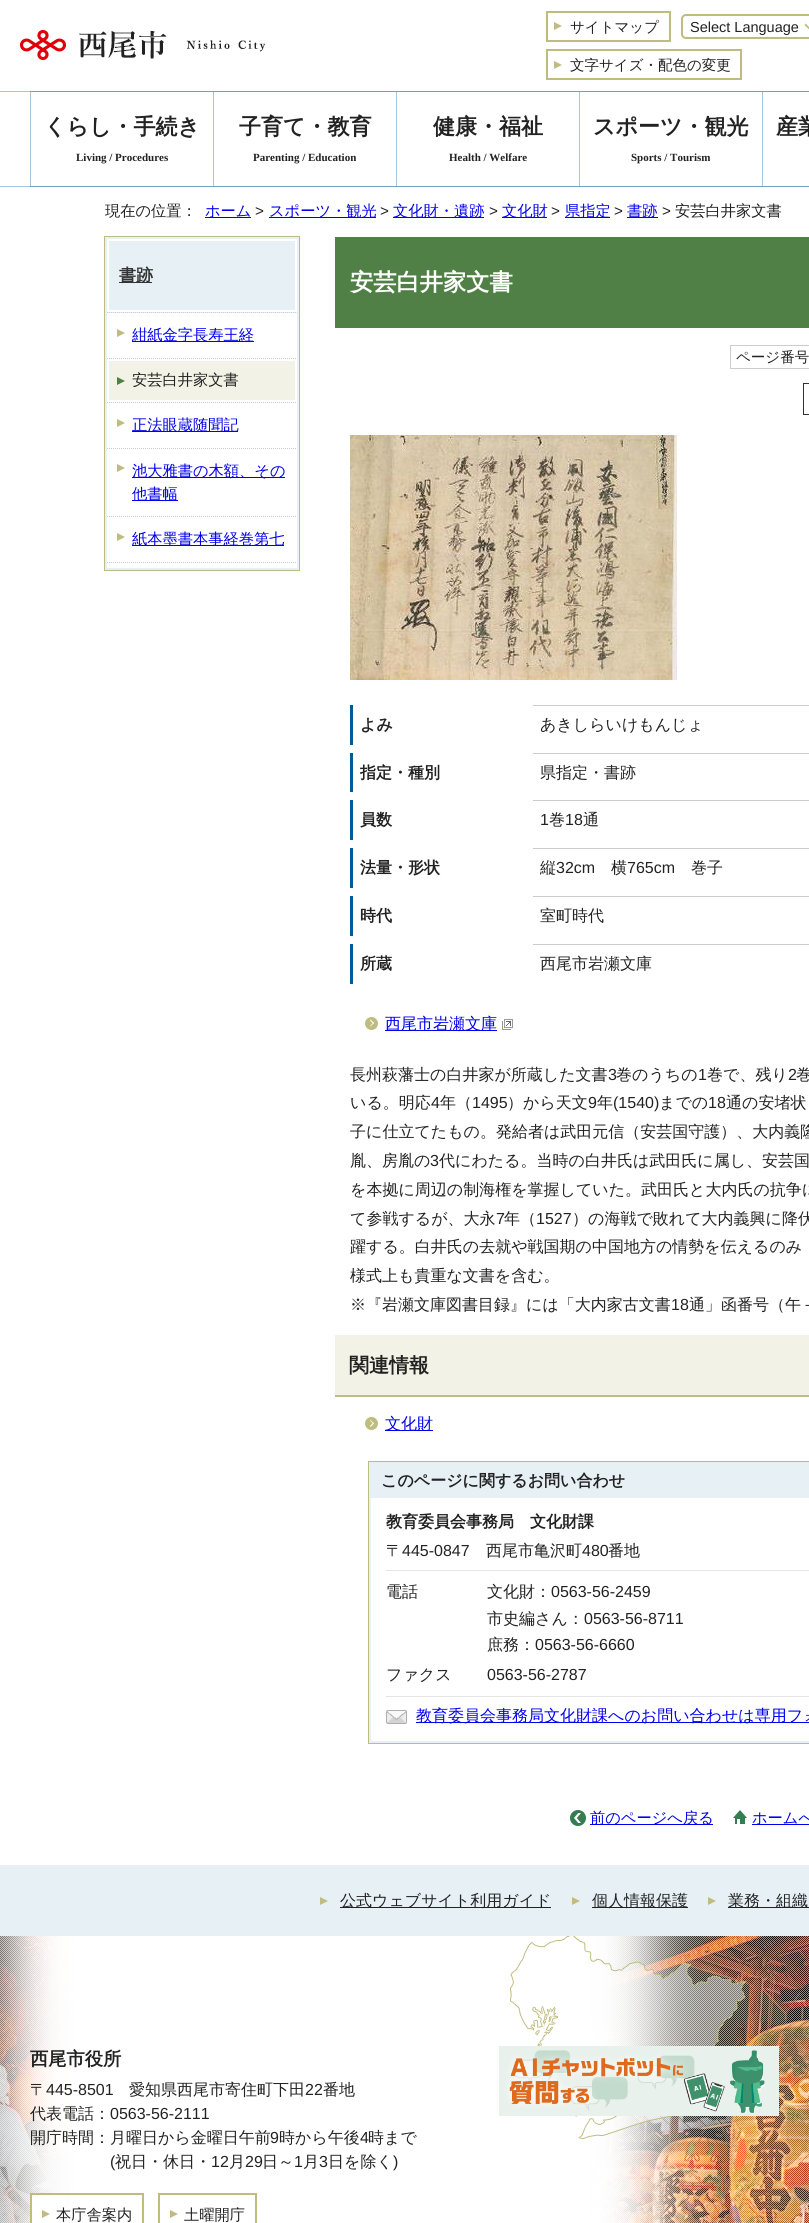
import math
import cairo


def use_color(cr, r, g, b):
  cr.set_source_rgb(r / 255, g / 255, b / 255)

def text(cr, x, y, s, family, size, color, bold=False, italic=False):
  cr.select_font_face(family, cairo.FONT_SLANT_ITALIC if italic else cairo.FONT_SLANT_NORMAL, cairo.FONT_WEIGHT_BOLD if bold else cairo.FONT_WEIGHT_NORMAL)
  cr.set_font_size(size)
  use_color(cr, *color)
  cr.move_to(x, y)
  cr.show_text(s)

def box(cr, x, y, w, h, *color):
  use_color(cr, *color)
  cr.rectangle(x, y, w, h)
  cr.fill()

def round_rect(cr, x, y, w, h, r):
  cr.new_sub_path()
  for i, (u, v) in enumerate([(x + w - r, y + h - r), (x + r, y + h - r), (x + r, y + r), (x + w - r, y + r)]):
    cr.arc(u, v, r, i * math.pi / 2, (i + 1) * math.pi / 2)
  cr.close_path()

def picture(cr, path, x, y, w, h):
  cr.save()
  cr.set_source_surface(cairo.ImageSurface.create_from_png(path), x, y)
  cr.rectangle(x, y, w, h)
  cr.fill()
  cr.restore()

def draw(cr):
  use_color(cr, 255, 255, 255)
  cr.paint()
  box(cr, 30, 91, 1, 96, 166, 198, 219)
  picture(cr, "img_01.png", 20, 30, 245, 30)
  picture(cr, "img_02.png", 554, 22, 8, 8)
  cr.rectangle(547, 12, 123, 29)
  use_color(cr, 192, 188, 128)
  cr.stroke()
  round_rect(cr, 682, 15, 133, 23, 4)
  cr.stroke()
  cr.new_path()
  cr.move_to(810.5, 28.5)
  cr.line_to(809.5, 30)
  cr.line_to(804.5, 25)
  cr.line_to(805.5, 23.5)
  cr.close_path()
  cr.fill()
  picture(cr, "img_02.png", 554, 61, 8, 8)
  cr.rectangle(547, 50, 194, 29)
  cr.stroke()
  box(cr, 0, 91, 30, 1, 166, 198, 219)
  box(cr, 30, 91, 779, 1, 108, 161, 196)
  box(cr, 0, 186, 30, 1, 166, 198, 219)
  box(cr, 30, 186, 779, 1, 108, 161, 196)
  box(cr, 213, 92, 1, 94, 166, 198, 219)
  box(cr, 396, 92, 1, 94, 166, 198, 219)
  box(cr, 579, 92, 1, 94, 166, 198, 219)
  box(cr, 762, 92, 1, 94, 166, 198, 219)
  box(cr, 205, 217, 46, 1, 0, 0, 238)
  box(cr, 269, 217, 107, 1, 0, 0, 238)
  box(cr, 393, 217, 91, 1, 0, 0, 238)
  box(cr, 502, 217, 45, 1, 0, 0, 238)
  box(cr, 565, 217, 45, 1, 0, 0, 238)
  box(cr, 627, 217, 31, 1, 0, 0, 238)
  cr.rectangle(106, 238, 192, 331)
  use_color(cr, 231, 241, 245)
  cr.stroke()
  box(cr, 108, 241, 189, 72, 231, 241, 245)
  cr.new_path()
  cr.move_to(107, 312.5)
  cr.line_to(297, 312.5)
  use_color(cr, 204, 204, 204)
  cr.set_line_width(1)
  cr.set_dash([1, 1])
  cr.stroke()
  cr.rectangle(108, 240, 188, 71)
  use_color(cr, 255, 255, 255)
  cr.set_line_width(2)
  cr.set_dash([])
  cr.stroke()
  box(cr, 119, 282, 33, 1, 51, 51, 51)
  cr.new_path()
  cr.move_to(107, 358.5)
  cr.line_to(297, 358.5)
  use_color(cr, 204, 204, 204)
  cr.set_line_width(1)
  cr.set_dash([1, 1])
  cr.stroke()
  cr.new_path()
  cr.move_to(107, 448.5)
  cr.line_to(297, 448.5)
  cr.stroke()
  cr.new_path()
  cr.move_to(107, 516.5)
  cr.line_to(297, 516.5)
  cr.stroke()
  cr.new_path()
  cr.move_to(107, 562.5)
  cr.line_to(297, 562.5)
  cr.stroke()
  cr.rectangle(104.5, 236.5, 195, 334)
  use_color(cr, 192, 188, 128)
  cr.set_dash([])
  cr.stroke()
  cr.new_path()
  cr.move_to(117, 337)
  cr.line_to(117, 329)
  cr.line_to(125, 333)
  cr.close_path()
  cr.fill()
  box(cr, 132, 341, 122, 1, 0, 0, 238)
  box(cr, 109, 361, 186, 39, 242, 242, 230)
  use_color(cr, 79, 128, 69)
  cr.new_path()
  cr.move_to(117, 385)
  cr.line_to(117, 377)
  cr.line_to(125, 381)
  cr.close_path()
  cr.fill()
  cr.new_path()
  cr.move_to(107, 402.5)
  cr.line_to(297, 402.5)
  use_color(cr, 204, 204, 204)
  cr.set_dash([1, 1])
  cr.stroke()
  use_color(cr, 192, 188, 128)
  cr.new_path()
  cr.move_to(117, 427)
  cr.line_to(117, 419)
  cr.line_to(125, 423)
  cr.close_path()
  cr.fill()
  box(cr, 132, 431, 106, 1, 0, 0, 238)
  use_color(cr, 192, 188, 128)
  cr.new_path()
  cr.move_to(117, 472)
  cr.line_to(117, 464)
  cr.line_to(125, 468)
  cr.close_path()
  cr.fill()
  box(cr, 132, 477, 153, 1, 0, 0, 238)
  box(cr, 132, 500, 46, 1, 0, 0, 238)
  use_color(cr, 192, 188, 128)
  cr.new_path()
  cr.move_to(117, 541)
  cr.line_to(117, 533)
  cr.line_to(125, 537)
  cr.close_path()
  cr.fill()
  box(cr, 132, 545, 152, 1, 0, 0, 238)
  box(cr, 335, 237, 474, 91, 80, 128, 69)
  cr.rectangle(730.5, 345.5, 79, 23)
  use_color(cr, 204, 204, 204)
  cr.set_dash([])
  cr.stroke()
  cr.rectangle(803.5, 383.5, 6, 31)
  use_color(cr, 51, 51, 51)
  cr.stroke()
  picture(cr, "img_03.png", 350, 435, 327, 245)
  box(cr, 350, 705, 3, 40, 0, 91, 152)
  box(cr, 533, 705, 276, 1, 204, 204, 204)
  box(cr, 350, 753, 3, 39, 0, 91, 152)
  box(cr, 533, 753, 276, 1, 204, 204, 204)
  box(cr, 350, 800, 3, 40, 0, 91, 152)
  box(cr, 533, 800, 276, 1, 204, 204, 204)
  box(cr, 350, 848, 3, 40, 0, 91, 152)
  box(cr, 533, 848, 276, 1, 204, 204, 204)
  box(cr, 350, 896, 3, 40, 0, 91, 152)
  box(cr, 533, 896, 276, 1, 204, 204, 204)
  box(cr, 350, 944, 3, 40, 0, 91, 152)
  box(cr, 533, 944, 276, 1, 204, 204, 204)
  use_color(cr, 192, 188, 128)
  cr.arc(371.5, 1023.5, 6.5, 0, 2 * math.pi)
  cr.fill()
  box(cr, 385, 1030, 112, 1, 0, 0, 238)
  use_color(cr, 255, 255, 255)
  cr.new_path()
  cr.move_to(370.5, 1019.5)
  cr.line_to(374, 1023)
  cr.line_to(373.5, 1024)
  cr.line_to(370, 1020.5)
  cr.close_path()
  cr.fill()
  cr.new_path()
  cr.move_to(373.5, 1022.5)
  cr.line_to(374, 1023)
  cr.line_to(370.5, 1026.5)
  cr.line_to(370, 1026)
  cr.close_path()
  cr.fill()
  picture(cr, "img_04.png", 502, 1019, 11, 11)
  box(cr, 335, 1335, 474, 60, 242, 242, 230)
  box(cr, 335, 1395, 474, 2, 192, 188, 128)
  cr.arc(371.5, 1423.5, 6.5, 0, 2 * math.pi)
  cr.fill()
  box(cr, 385, 1430, 48, 1, 0, 0, 238)
  use_color(cr, 255, 255, 255)
  cr.new_path()
  cr.move_to(370.5, 1420)
  cr.line_to(374, 1423.5)
  cr.line_to(373.5, 1424)
  cr.line_to(370, 1420.5)
  cr.close_path()
  cr.fill()
  cr.new_path()
  cr.move_to(373.5, 1422.5)
  cr.line_to(374, 1423.5)
  cr.line_to(370.5, 1427)
  cr.line_to(370, 1426)
  cr.close_path()
  cr.fill()
  use_color(cr, 231, 241, 245)
  cr.rectangle(368.5, 1461.5, 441, 282)
  cr.fill_preserve()
  use_color(cr, 192, 188, 128)
  cr.stroke()
  box(cr, 371, 1498, 438, 243, 255, 255, 255)
  box(cr, 386, 1570, 423, 1, 228, 228, 228)
  box(cr, 386, 1696, 423, 1, 228, 228, 228)
  picture(cr, "img_05.png", 386, 1710, 21, 14)
  box(cr, 416, 1722, 393, 1, 0, 0, 238)
  picture(cr, "img_06.png", 570, 1810, 16, 16)
  box(cr, 590, 1824, 123, 1, 0, 0, 238)
  picture(cr, "img_07.png", 733, 1810, 14, 14)
  box(cr, 752, 1824, 57, 1, 0, 0, 238)
  picture(cr, "img_10.png", 0, 1936, 809, 287)
  picture(cr, "img_08.png", 499, 2046, 280, 70)
  box(cr, 0, 1865, 809, 71, 231, 241, 245)
  picture(cr, "img_09.png", 320, 1897, 8, 8)
  box(cr, 340, 1907, 211, 1, 34, 34, 34)
  picture(cr, "img_09.png", 572, 1897, 8, 8)
  box(cr, 592, 1907, 96, 1, 34, 34, 34)
  picture(cr, "img_09.png", 708, 1897, 8, 8)
  box(cr, 728, 1907, 81, 1, 34, 34, 34)
  box(cr, 32, 2195, 33, 28, 255, 255, 255)
  picture(cr, "img_11.png", 42, 2210, 8, 8)
  cr.rectangle(31, 2194, 112, 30)
  use_color(cr, 192, 188, 128)
  cr.set_line_width(2)
  cr.stroke()
  picture(cr, "img_11.png", 170, 2210, 8, 8)
  cr.rectangle(159, 2194, 97, 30)
  cr.stroke()
  text(cr, 570, 32, "サイトマップ", "WenQuanYi Zen Hei Medium", 14.5, (34, 34, 34))
  text(cr, 690, 32, "Select Language", "Liberation Sans", 14.5, (34, 34, 34))
  text(cr, 570, 70, "文字サイズ・配色の変更", "WenQuanYi Zen Hei Medium", 14.5, (34, 34, 34))
  text(cr, 44, 134, "くらし・手続き", "WenQuanYi Zen Hei", 22, (34, 34, 34), bold=True)
  text(cr, 76, 161, "Living / Procedures", "Liberation Serif", 11, (34, 34, 34), bold=True)
  text(cr, 239, 134, "子育て・教育", "WenQuanYi Zen Hei", 22, (34, 34, 34), bold=True)
  text(cr, 253, 161, "Parenting / Education", "Liberation Serif", 11, (34, 34, 34), bold=True)
  text(cr, 433, 134, "健康・福祉", "WenQuanYi Zen Hei", 22, (34, 34, 34), bold=True)
  text(cr, 449, 161, "Health / Welfare", "Liberation Serif", 11, (34, 34, 34), bold=True)
  text(cr, 593, 134, "スポーツ・観光", "WenQuanYi Zen Hei", 22, (34, 34, 34), bold=True)
  text(cr, 631, 161, "Sports / Tourism", "Liberation Serif", 11, (34, 34, 34), bold=True)
  text(cr, 776, 134, "産業", "WenQuanYi Zen Hei", 22, (34, 34, 34), bold=True)
  text(cr, 105, 216, "現在の位置：", "WenQuanYi Zen Hei Medium", 15.25, (34, 34, 34))
  text(cr, 205, 216, "ホーム", "WenQuanYi Zen Hei Medium", 15.25, (0, 0, 238))
  text(cr, 255, 216, ">", "Liberation Sans", 15.25, (34, 34, 34))
  text(cr, 269, 216, "スポーツ・観光", "WenQuanYi Zen Hei Medium", 15.25, (0, 0, 238))
  text(cr, 380, 216, ">", "Liberation Sans", 15.25, (34, 34, 34))
  text(cr, 393, 216, "文化財・遺跡", "WenQuanYi Zen Hei Medium", 15.25, (0, 0, 238))
  text(cr, 489, 216, ">", "Liberation Sans", 15.25, (34, 34, 34))
  text(cr, 502, 216, "文化財", "WenQuanYi Zen Hei Medium", 15.25, (0, 0, 238))
  text(cr, 551, 216, ">", "Liberation Sans", 15.25, (34, 34, 34))
  text(cr, 565, 216, "県指定", "WenQuanYi Zen Hei Medium", 15.25, (0, 0, 238))
  text(cr, 614, 216, ">", "Liberation Sans", 15.25, (34, 34, 34))
  text(cr, 627, 216, "書跡", "WenQuanYi Zen Hei Medium", 15.25, (0, 0, 238))
  text(cr, 662, 216, ">", "Liberation Sans", 15.25, (34, 34, 34))
  text(cr, 675, 216, "安芸白井家文書", "WenQuanYi Zen Hei Medium", 15.25, (34, 34, 34))
  text(cr, 119, 281, "書跡", "WenQuanYi Zen Hei", 17, (51, 51, 51), bold=True)
  text(cr, 132, 340, "紺紙金字長寿王経", "WenQuanYi Zen Hei Medium", 15.25, (0, 0, 238))
  text(cr, 132, 385, "安芸白井家文書", "WenQuanYi Zen Hei Medium", 15.25, (34, 34, 34))
  text(cr, 132, 430, "正法眼蔵随聞記", "WenQuanYi Zen Hei Medium", 15.25, (0, 0, 238))
  text(cr, 132, 476, "池大雅書の木額、その", "WenQuanYi Zen Hei Medium", 15.25, (0, 0, 238))
  text(cr, 132, 499, "他書幅", "WenQuanYi Zen Hei Medium", 15.25, (0, 0, 238))
  text(cr, 132, 544, "紙本墨書本事経巻第七", "WenQuanYi Zen Hei Medium", 15.25, (0, 0, 238))
  text(cr, 350, 290, "安芸白井家文書", "WenQuanYi Zen Hei", 23.25, (255, 255, 255), bold=True)
  text(cr, 736, 362, "ページ番号", "WenQuanYi Zen Hei Medium", 14.5, (34, 34, 34))
  text(cr, 360, 730, "よみ", "WenQuanYi Zen Hei", 16, (34, 34, 34), bold=True)
  text(cr, 540, 730, "あきしらいけもんじょ", "WenQuanYi Zen Hei Medium", 16, (34, 34, 34))
  text(cr, 360, 778, "指定・種別", "WenQuanYi Zen Hei", 16, (34, 34, 34), bold=True)
  text(cr, 540, 778, "県指定・書跡", "WenQuanYi Zen Hei Medium", 16, (34, 34, 34))
  text(cr, 360, 825, "員数", "WenQuanYi Zen Hei", 16, (34, 34, 34), bold=True)
  text(cr, 540, 825, "1", "Liberation Sans", 16, (34, 34, 34))
  text(cr, 549, 825, "巻", "WenQuanYi Zen Hei Medium", 16, (34, 34, 34))
  text(cr, 565, 825, "18", "Liberation Sans", 16, (34, 34, 34))
  text(cr, 583, 825, "通", "WenQuanYi Zen Hei Medium", 16, (34, 34, 34))
  text(cr, 360, 873, "法量・形状", "WenQuanYi Zen Hei", 16, (34, 34, 34), bold=True)
  text(cr, 540, 873, "縦", "WenQuanYi Zen Hei Medium", 16, (34, 34, 34))
  text(cr, 556, 873, "32cm", "Liberation Sans", 16, (34, 34, 34))
  text(cr, 611, 873, "横", "WenQuanYi Zen Hei Medium", 16, (34, 34, 34))
  text(cr, 627, 873, "765cm", "Liberation Sans", 16, (34, 34, 34))
  text(cr, 691, 873, "巻子", "WenQuanYi Zen Hei Medium", 16, (34, 34, 34))
  text(cr, 360, 921, "時代", "WenQuanYi Zen Hei", 16, (34, 34, 34), bold=True)
  text(cr, 540, 921, "室町時代", "WenQuanYi Zen Hei Medium", 16, (34, 34, 34))
  text(cr, 360, 969, "所蔵", "WenQuanYi Zen Hei", 16, (34, 34, 34), bold=True)
  text(cr, 540, 969, "西尾市岩瀬文庫", "WenQuanYi Zen Hei Medium", 16, (34, 34, 34))
  text(cr, 385, 1029, "西尾市岩瀬文庫", "WenQuanYi Zen Hei Medium", 16, (0, 0, 238))
  text(cr, 350, 1080, "長州萩藩士の白井家が所蔵した文書", "WenQuanYi Zen Hei Medium", 16, (34, 34, 34))
  text(cr, 608, 1080, "3", "Liberation Sans", 16, (34, 34, 34))
  text(cr, 616, 1080, "巻のうちの", "WenQuanYi Zen Hei Medium", 16, (34, 34, 34))
  text(cr, 698, 1080, "1", "Liberation Sans", 16, (34, 34, 34))
  text(cr, 707, 1080, "巻で、残り", "WenQuanYi Zen Hei Medium", 16, (34, 34, 34))
  text(cr, 788, 1080, "2", "Liberation Sans", 16, (34, 34, 34))
  text(cr, 796, 1080, "巻", "WenQuanYi Zen Hei Medium", 16, (34, 34, 34))
  text(cr, 350, 1108, "いる。明応", "WenQuanYi Zen Hei Medium", 16, (34, 34, 34))
  text(cr, 431, 1108, "4", "Liberation Sans", 16, (34, 34, 34))
  text(cr, 440, 1108, "年（", "WenQuanYi Zen Hei Medium", 16, (34, 34, 34))
  text(cr, 472, 1108, "1495", "Liberation Sans", 16, (34, 34, 34))
  text(cr, 507, 1108, "）から天文", "WenQuanYi Zen Hei Medium", 16, (34, 34, 34))
  text(cr, 588, 1108, "9", "Liberation Sans", 16, (34, 34, 34))
  text(cr, 597, 1108, "年", "WenQuanYi Zen Hei Medium", 16, (34, 34, 34))
  text(cr, 613, 1108, "(1540)", "Liberation Sans", 16, (34, 34, 34))
  text(cr, 659, 1108, "までの", "WenQuanYi Zen Hei Medium", 16, (34, 34, 34))
  text(cr, 708, 1108, "18", "Liberation Sans", 16, (34, 34, 34))
  text(cr, 726, 1108, "通の安堵状", "WenQuanYi Zen Hei Medium", 16, (34, 34, 34))
  text(cr, 350, 1137, "子に仕立てたもの。発給者は武田元信（安芸国守護）、大内義隆", "WenQuanYi Zen Hei Medium", 16, (34, 34, 34))
  text(cr, 350, 1166, "胤、房胤の", "WenQuanYi Zen Hei Medium", 16, (34, 34, 34))
  text(cr, 430, 1166, "3", "Liberation Sans", 16, (34, 34, 34))
  text(cr, 439, 1166, "代にわたる。当時の白井氏は武田氏に属し、安芸国", "WenQuanYi Zen Hei Medium", 16, (34, 34, 34))
  text(cr, 350, 1195, "を本拠に周辺の制海権を掌握していた。武田氏と大内氏の抗争に", "WenQuanYi Zen Hei Medium", 16, (34, 34, 34))
  text(cr, 350, 1224, "て参戦するが、大永", "WenQuanYi Zen Hei Medium", 16, (34, 34, 34))
  text(cr, 496, 1224, "7", "Liberation Sans", 16, (34, 34, 34))
  text(cr, 504, 1224, "年（", "WenQuanYi Zen Hei Medium", 16, (34, 34, 34))
  text(cr, 536, 1224, "1527", "Liberation Sans", 16, (34, 34, 34))
  text(cr, 572, 1224, "）の海戦で敗れて大内義興に降伏", "WenQuanYi Zen Hei Medium", 16, (34, 34, 34))
  text(cr, 350, 1252, "躍する。白井氏の去就や戦国期の中国地方の情勢を伝えるのみ", "WenQuanYi Zen Hei Medium", 16, (34, 34, 34))
  text(cr, 350, 1281, "様式上も貴重な文書を含む。", "WenQuanYi Zen Hei Medium", 16, (34, 34, 34))
  text(cr, 350, 1310, "※『岩瀬文庫図書目録』には「大内家古文書", "WenQuanYi Zen Hei Medium", 16, (34, 34, 34))
  text(cr, 671, 1310, "18", "Liberation Sans", 16, (34, 34, 34))
  text(cr, 689, 1310, "通」函番号（午－", "WenQuanYi Zen Hei Medium", 16, (34, 34, 34))
  text(cr, 349, 1372, "関連情報", "WenQuanYi Zen Hei", 20, (34, 34, 34), bold=True)
  text(cr, 385, 1429, "文化財", "WenQuanYi Zen Hei Medium", 16, (0, 0, 238))
  text(cr, 381, 1486, "このページに関するお問い合わせ", "WenQuanYi Zen Hei", 16, (34, 34, 34), bold=True)
  text(cr, 386, 1527, "教育委員会事務局　文化財課", "WenQuanYi Zen Hei", 16, (34, 34, 34), bold=True)
  text(cr, 386, 1556, "〒", "WenQuanYi Zen Hei Medium", 16, (34, 34, 34))
  text(cr, 402, 1556, "445-0847", "Liberation Sans", 16, (34, 34, 34))
  text(cr, 486, 1556, "西尾市亀沢町", "WenQuanYi Zen Hei Medium", 16, (34, 34, 34))
  text(cr, 582, 1556, "480", "Liberation Sans", 16, (34, 34, 34))
  text(cr, 608, 1556, "番地", "WenQuanYi Zen Hei Medium", 16, (34, 34, 34))
  text(cr, 386, 1597, "電話", "WenQuanYi Zen Hei Medium", 16, (34, 34, 34))
  text(cr, 487, 1597, "文化財：", "WenQuanYi Zen Hei Medium", 16, (34, 34, 34))
  text(cr, 551, 1597, "0563-56-2459", "Liberation Sans", 16, (34, 34, 34))
  text(cr, 487, 1624, "市史編さん：", "WenQuanYi Zen Hei Medium", 16, (34, 34, 34))
  text(cr, 584, 1624, "0563-56-8711", "Liberation Sans", 16, (34, 34, 34))
  text(cr, 487, 1650, "庶務：", "WenQuanYi Zen Hei Medium", 16, (34, 34, 34))
  text(cr, 535, 1650, "0563-56-6660", "Liberation Sans", 16, (34, 34, 34))
  text(cr, 386, 1680, "ファクス", "WenQuanYi Zen Hei Medium", 16, (34, 34, 34))
  text(cr, 487, 1680, "0563-56-2787", "Liberation Sans", 16, (34, 34, 34))
  text(cr, 416, 1721, "教育委員会事務局文化財課へのお問い合わせは専用フォ", "WenQuanYi Zen Hei Medium", 16, (0, 0, 238))
  text(cr, 590, 1823, "前のページへ戻る", "WenQuanYi Zen Hei Medium", 15.25, (0, 0, 238))
  text(cr, 752, 1823, "ホームへ", "WenQuanYi Zen Hei Medium", 15.25, (0, 0, 238))
  text(cr, 340, 1906, "公式ウェブサイト利用ガイド", "WenQuanYi Zen Hei Medium", 16, (34, 34, 34))
  text(cr, 592, 1906, "個人情報保護", "WenQuanYi Zen Hei Medium", 16, (34, 34, 34))
  text(cr, 728, 1906, "業務・組織", "WenQuanYi Zen Hei Medium", 16, (34, 34, 34))
  text(cr, 30, 2065, "西尾市役所", "WenQuanYi Zen Hei", 18.25, (34, 34, 34), bold=True)
  text(cr, 30, 2095, "〒", "WenQuanYi Zen Hei Medium", 16, (34, 34, 34))
  text(cr, 46, 2095, "445-8501", "Liberation Sans", 16, (34, 34, 34))
  text(cr, 129, 2095, "愛知県西尾市寄住町下田", "WenQuanYi Zen Hei Medium", 16, (34, 34, 34))
  text(cr, 305, 2095, "22", "Liberation Sans", 16, (34, 34, 34))
  text(cr, 323, 2095, "番地", "WenQuanYi Zen Hei Medium", 16, (34, 34, 34))
  text(cr, 30, 2119, "代表電話：", "WenQuanYi Zen Hei Medium", 16, (34, 34, 34))
  text(cr, 110, 2119, "0563-56-2111", "Liberation Sans", 16, (34, 34, 34))
  text(cr, 30, 2143, "開庁時間：月曜日から金曜日午前", "WenQuanYi Zen Hei Medium", 16, (34, 34, 34))
  text(cr, 270, 2143, "9", "Liberation Sans", 16, (34, 34, 34))
  text(cr, 279, 2143, "時から午後", "WenQuanYi Zen Hei Medium", 16, (34, 34, 34))
  text(cr, 360, 2143, "4", "Liberation Sans", 16, (34, 34, 34))
  text(cr, 368, 2143, "時まで", "WenQuanYi Zen Hei Medium", 16, (34, 34, 34))
  text(cr, 110, 2167, "(", "Liberation Sans", 16, (34, 34, 34))
  text(cr, 115, 2167, "祝日・休日・", "WenQuanYi Zen Hei Medium", 16, (34, 34, 34))
  text(cr, 211, 2167, "12", "Liberation Sans", 16, (34, 34, 34))
  text(cr, 229, 2167, "月", "WenQuanYi Zen Hei Medium", 16, (34, 34, 34))
  text(cr, 245, 2167, "29", "Liberation Sans", 16, (34, 34, 34))
  text(cr, 262, 2167, "日～", "WenQuanYi Zen Hei Medium", 16, (34, 34, 34))
  text(cr, 294, 2167, "1", "Liberation Sans", 16, (34, 34, 34))
  text(cr, 303, 2167, "月", "WenQuanYi Zen Hei Medium", 16, (34, 34, 34))
  text(cr, 319, 2167, "3", "Liberation Sans", 16, (34, 34, 34))
  text(cr, 328, 2167, "日を除く", "WenQuanYi Zen Hei Medium", 16, (34, 34, 34))
  text(cr, 393, 2167, ")", "Liberation Sans", 16, (34, 34, 34))
  text(cr, 56, 2220, "本庁舎案内", "WenQuanYi Zen Hei Medium", 15.25, (34, 34, 34))
  text(cr, 184, 2220, "土曜開庁", "WenQuanYi Zen Hei Medium", 15.25, (34, 34, 34))


surface = cairo.ImageSurface(cairo.FORMAT_RGB24, 809, 2223)
cr = cairo.Context(surface)
options = cairo.FontOptions()
options.set_hint_metrics(cairo.HINT_METRICS_OFF)
options.set_hint_style(cairo.HINT_STYLE_NONE)
cr.set_font_options(options)
cr.set_miter_limit(4)
draw(cr)
surface.write_to_png("out.png")
